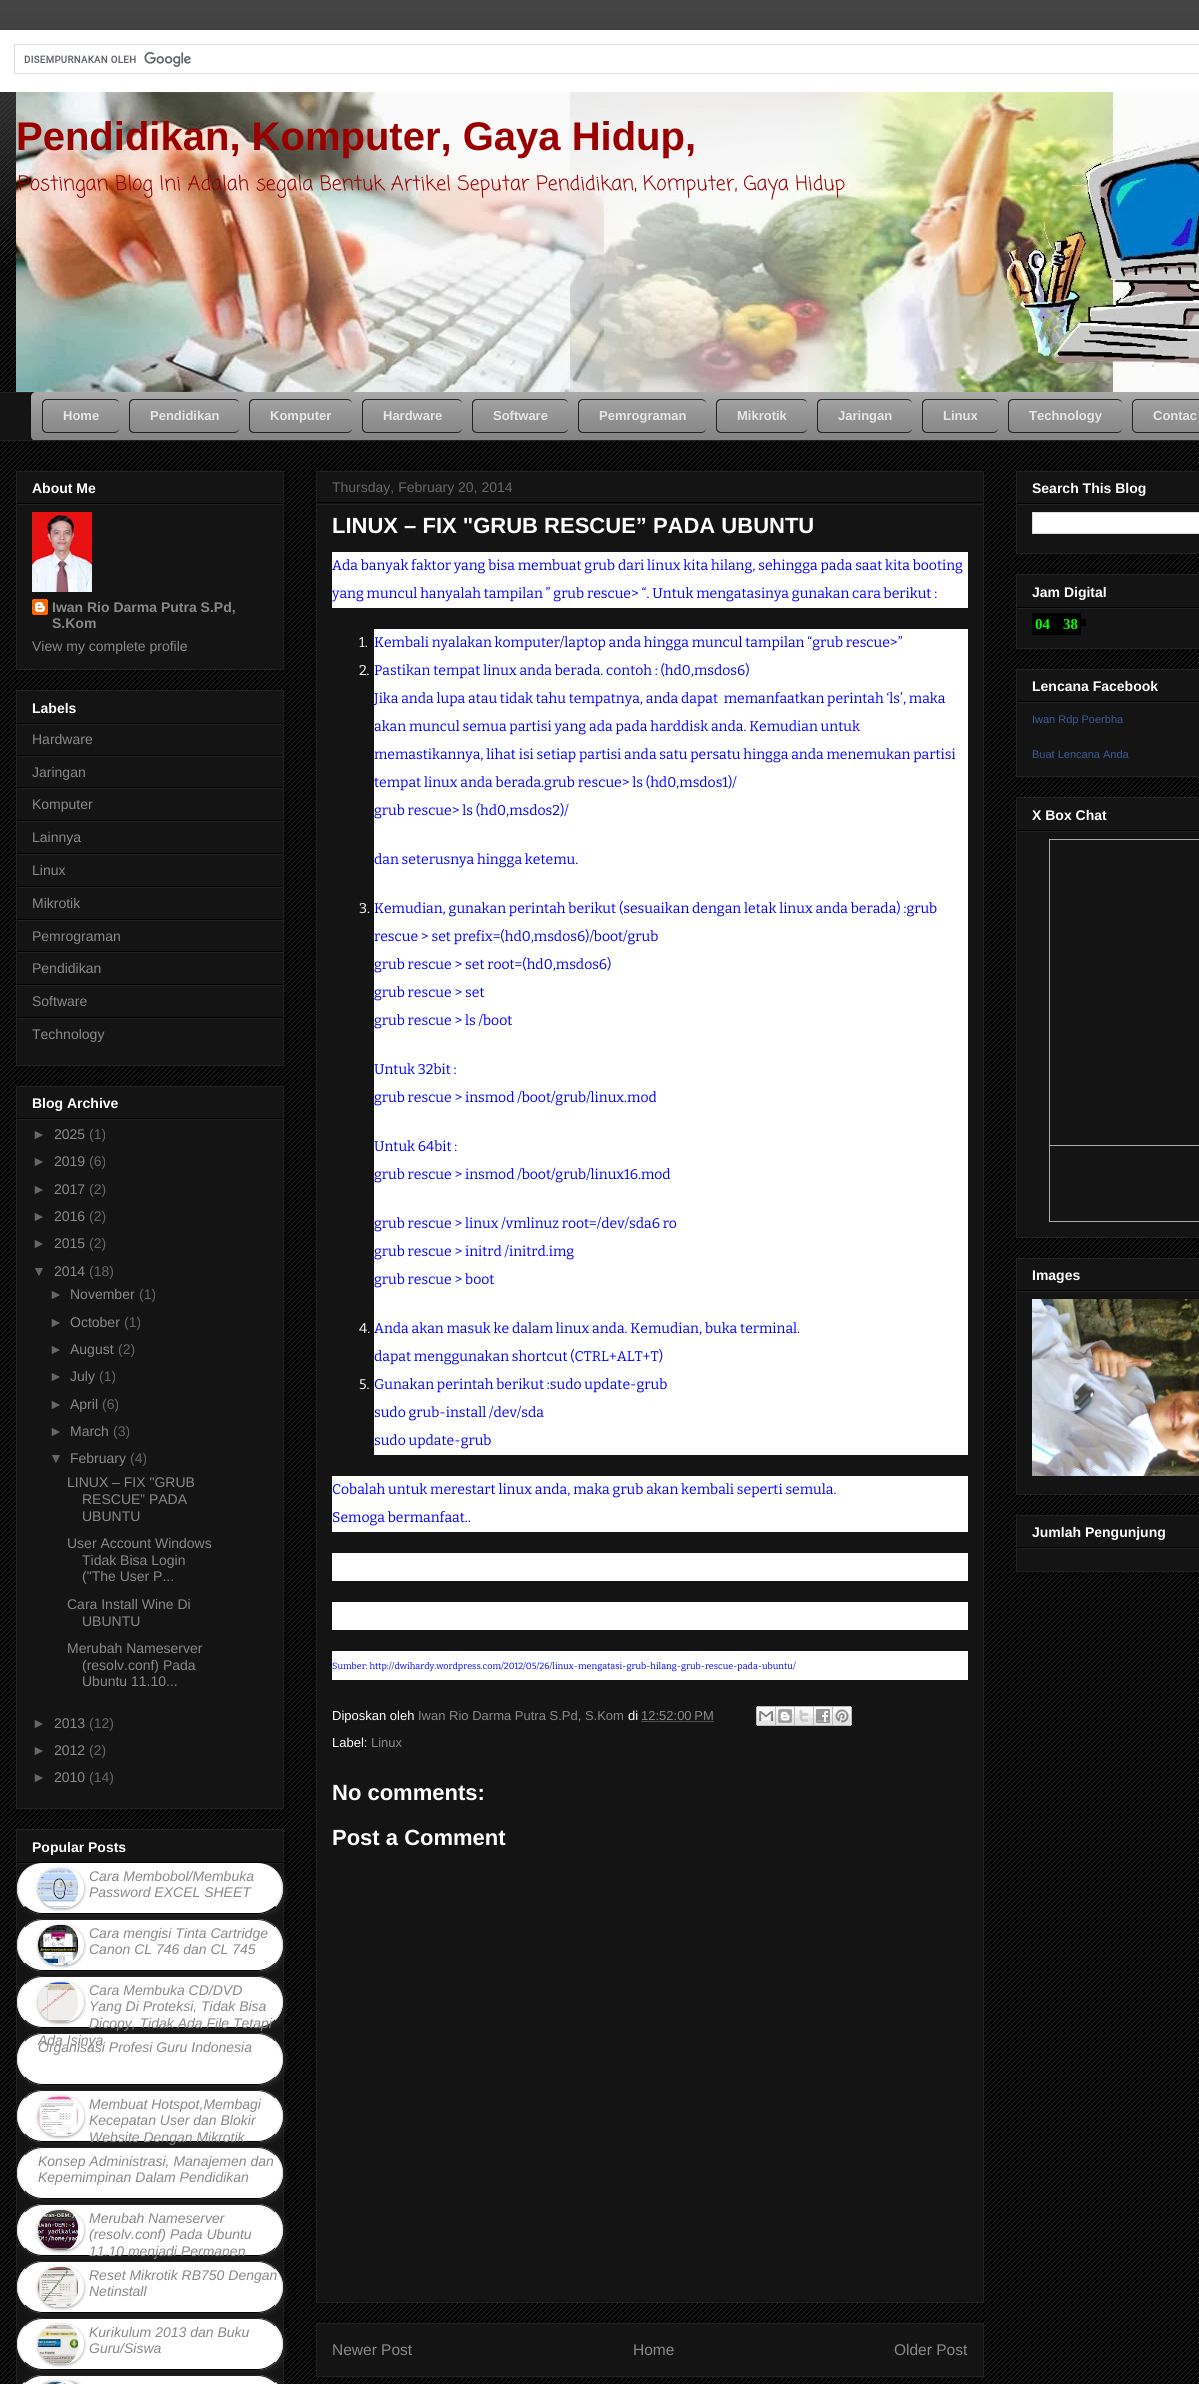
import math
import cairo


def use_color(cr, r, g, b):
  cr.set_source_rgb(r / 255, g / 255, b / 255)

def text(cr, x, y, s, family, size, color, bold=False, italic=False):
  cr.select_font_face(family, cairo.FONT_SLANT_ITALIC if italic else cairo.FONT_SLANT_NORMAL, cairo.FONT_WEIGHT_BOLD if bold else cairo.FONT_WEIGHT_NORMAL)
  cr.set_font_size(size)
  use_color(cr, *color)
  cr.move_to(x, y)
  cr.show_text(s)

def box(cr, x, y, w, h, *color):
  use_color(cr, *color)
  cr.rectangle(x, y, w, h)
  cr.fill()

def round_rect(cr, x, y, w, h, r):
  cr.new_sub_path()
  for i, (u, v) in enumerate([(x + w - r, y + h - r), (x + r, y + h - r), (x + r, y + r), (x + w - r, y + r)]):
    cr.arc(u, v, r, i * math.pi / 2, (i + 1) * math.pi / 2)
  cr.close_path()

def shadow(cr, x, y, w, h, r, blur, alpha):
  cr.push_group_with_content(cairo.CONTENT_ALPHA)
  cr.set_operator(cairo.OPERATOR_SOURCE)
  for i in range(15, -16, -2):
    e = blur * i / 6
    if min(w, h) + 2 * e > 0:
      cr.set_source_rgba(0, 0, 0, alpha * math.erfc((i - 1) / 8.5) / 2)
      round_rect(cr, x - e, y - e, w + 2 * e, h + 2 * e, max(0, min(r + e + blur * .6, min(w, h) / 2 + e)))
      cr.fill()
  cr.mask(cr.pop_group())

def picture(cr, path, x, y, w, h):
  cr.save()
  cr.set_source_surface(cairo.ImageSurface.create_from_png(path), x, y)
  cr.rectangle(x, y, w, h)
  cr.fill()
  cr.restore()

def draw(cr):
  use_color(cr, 0, 0, 0)
  cr.paint()
  picture(cr, "img_01.png", 0, 13, 1199, 2371)
  picture(cr, "img_02.png", 0, 0, 1199, 268)
  box(cr, 0, 30, 1199, 62, 255, 255, 255)
  cr.rectangle(14.5, 44.5, 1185, 29)
  use_color(cr, 223, 225, 229)
  cr.set_line_width(1)
  cr.stroke()
  picture(cr, "img_03.png", 24, 52, 167, 15)
  picture(cr, "img_04.png", 16, 92, 1183, 300)
  box(cr, 0, 393, 33, 47, 20, 20, 20)
  box(cr, 0, 392, 36, 1, 34, 34, 34)
  cr.save()
  cr.rectangle(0, 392, 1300, 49)
  cr.clip()
  use_color(cr, 0, 0, 0)
  shadow(cr, 31, 393, 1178, 49, 5, 1.5, 0.4)
  cr.restore()
  use_color(cr, 125, 125, 125)
  round_rect(cr, 31, 392, 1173, 49, 5)
  cr.fill()
  picture(cr, "img_05.png", 31, 392, 1168, 48)
  use_color(cr, 34, 34, 34)
  cr.set_fill_rule(cairo.FILL_RULE_EVEN_ODD)
  cr.new_path()
  cr.move_to(47, 399)
  cr.line_to(114, 399)
  cr.curve_to(117, 399, 119, 401, 119, 404)
  cr.line_to(119, 428)
  cr.curve_to(119, 431, 117, 433, 114, 433)
  cr.line_to(47, 433)
  cr.curve_to(44, 433, 42, 431, 42, 428)
  cr.line_to(42, 404)
  cr.curve_to(42, 401, 44, 399, 47, 399)
  cr.close_path()
  cr.move_to(47, 400)
  cr.line_to(114, 400)
  cr.curve_to(117, 400, 119, 402, 119, 404)
  cr.line_to(119, 428)
  cr.curve_to(119, 430, 117, 432, 114, 432)
  cr.line_to(47, 432)
  cr.curve_to(45, 432, 43, 430, 43, 428)
  cr.line_to(43, 404)
  cr.curve_to(43, 402, 45, 400, 47, 400)
  cr.close_path()
  cr.fill()
  cr.new_path()
  cr.move_to(134, 399)
  cr.line_to(234, 399)
  cr.curve_to(237, 399, 239, 401, 239, 404)
  cr.line_to(239, 428)
  cr.curve_to(239, 431, 237, 433, 234, 433)
  cr.line_to(134, 433)
  cr.curve_to(131, 433, 129, 431, 129, 428)
  cr.line_to(129, 404)
  cr.curve_to(129, 401, 131, 399, 134, 399)
  cr.close_path()
  cr.move_to(134, 400)
  cr.line_to(234, 400)
  cr.curve_to(237, 400, 239, 402, 239, 404)
  cr.line_to(239, 428)
  cr.curve_to(239, 430, 237, 432, 234, 432)
  cr.line_to(134, 432)
  cr.curve_to(132, 432, 130, 430, 130, 428)
  cr.line_to(130, 404)
  cr.curve_to(130, 402, 132, 400, 134, 400)
  cr.close_path()
  cr.fill()
  cr.new_path()
  cr.move_to(254, 399)
  cr.line_to(347, 399)
  cr.curve_to(350, 399, 352, 401, 352, 404)
  cr.line_to(352, 428)
  cr.curve_to(352, 431, 350, 433, 347, 433)
  cr.line_to(254, 433)
  cr.curve_to(251, 433, 249, 431, 249, 428)
  cr.line_to(249, 404)
  cr.curve_to(249, 401, 251, 399, 254, 399)
  cr.close_path()
  cr.move_to(254, 400)
  cr.line_to(347, 400)
  cr.curve_to(350, 400, 352, 402, 352, 404)
  cr.line_to(352, 428)
  cr.curve_to(352, 430, 350, 432, 347, 432)
  cr.line_to(254, 432)
  cr.curve_to(252, 432, 250, 430, 250, 428)
  cr.line_to(250, 404)
  cr.curve_to(250, 402, 252, 400, 254, 400)
  cr.close_path()
  cr.fill()
  cr.new_path()
  cr.move_to(367, 399)
  cr.line_to(457, 399)
  cr.curve_to(460, 399, 462, 401, 462, 404)
  cr.line_to(462, 428)
  cr.curve_to(462, 431, 460, 433, 457, 433)
  cr.line_to(367, 433)
  cr.curve_to(364, 433, 362, 431, 362, 428)
  cr.line_to(362, 404)
  cr.curve_to(362, 401, 364, 399, 367, 399)
  cr.close_path()
  cr.move_to(367, 400)
  cr.line_to(457, 400)
  cr.curve_to(460, 400, 462, 402, 462, 404)
  cr.line_to(462, 428)
  cr.curve_to(462, 430, 460, 432, 457, 432)
  cr.line_to(367, 432)
  cr.curve_to(365, 432, 363, 430, 363, 428)
  cr.line_to(363, 404)
  cr.curve_to(363, 402, 365, 400, 367, 400)
  cr.close_path()
  cr.fill()
  cr.new_path()
  cr.move_to(477, 399)
  cr.line_to(563, 399)
  cr.curve_to(566, 399, 568, 401, 568, 404)
  cr.line_to(568, 428)
  cr.curve_to(568, 431, 566, 433, 563, 433)
  cr.line_to(477, 433)
  cr.curve_to(474, 433, 472, 431, 472, 428)
  cr.line_to(472, 404)
  cr.curve_to(472, 401, 474, 399, 477, 399)
  cr.close_path()
  cr.move_to(477, 400)
  cr.line_to(563, 400)
  cr.curve_to(566, 400, 568, 402, 568, 404)
  cr.line_to(568, 428)
  cr.curve_to(568, 430, 566, 432, 563, 432)
  cr.line_to(477, 432)
  cr.curve_to(475, 432, 473, 430, 473, 428)
  cr.line_to(473, 404)
  cr.curve_to(473, 402, 475, 400, 477, 400)
  cr.close_path()
  cr.fill()
  cr.new_path()
  cr.move_to(583, 399)
  cr.line_to(701, 399)
  cr.curve_to(704, 399, 706, 401, 706, 404)
  cr.line_to(706, 428)
  cr.curve_to(706, 431, 704, 433, 701, 433)
  cr.line_to(583, 433)
  cr.curve_to(580, 433, 578, 431, 578, 428)
  cr.line_to(578, 404)
  cr.curve_to(578, 401, 580, 399, 583, 399)
  cr.close_path()
  cr.move_to(583, 400)
  cr.line_to(701, 400)
  cr.curve_to(704, 400, 706, 402, 706, 404)
  cr.line_to(706, 428)
  cr.curve_to(706, 430, 704, 432, 701, 432)
  cr.line_to(583, 432)
  cr.curve_to(581, 432, 579, 430, 579, 428)
  cr.line_to(579, 404)
  cr.curve_to(579, 402, 581, 400, 583, 400)
  cr.close_path()
  cr.fill()
  cr.new_path()
  cr.move_to(721, 399)
  cr.line_to(802, 399)
  cr.curve_to(805, 399, 807, 401, 807, 404)
  cr.line_to(807, 428)
  cr.curve_to(807, 431, 805, 433, 802, 433)
  cr.line_to(721, 433)
  cr.curve_to(718, 433, 716, 431, 716, 428)
  cr.line_to(716, 404)
  cr.curve_to(716, 401, 718, 399, 721, 399)
  cr.close_path()
  cr.move_to(721, 400)
  cr.line_to(802, 400)
  cr.curve_to(805, 400, 807, 402, 807, 404)
  cr.line_to(807, 428)
  cr.curve_to(807, 430, 805, 432, 802, 432)
  cr.line_to(721, 432)
  cr.curve_to(719, 432, 717, 430, 717, 428)
  cr.line_to(717, 404)
  cr.curve_to(717, 402, 719, 400, 721, 400)
  cr.close_path()
  cr.fill()
  cr.new_path()
  cr.move_to(822, 399)
  cr.line_to(907, 399)
  cr.curve_to(910, 399, 912, 401, 912, 404)
  cr.line_to(912, 428)
  cr.curve_to(912, 431, 910, 433, 907, 433)
  cr.line_to(822, 433)
  cr.curve_to(819, 433, 817, 431, 817, 428)
  cr.line_to(817, 404)
  cr.curve_to(817, 401, 819, 399, 822, 399)
  cr.close_path()
  cr.move_to(822, 400)
  cr.line_to(907, 400)
  cr.curve_to(910, 400, 912, 402, 912, 404)
  cr.line_to(912, 428)
  cr.curve_to(912, 430, 910, 432, 907, 432)
  cr.line_to(822, 432)
  cr.curve_to(820, 432, 818, 430, 818, 428)
  cr.line_to(818, 404)
  cr.curve_to(818, 402, 820, 400, 822, 400)
  cr.close_path()
  cr.fill()
  cr.new_path()
  cr.move_to(927, 399)
  cr.line_to(993, 399)
  cr.curve_to(996, 399, 998, 401, 998, 404)
  cr.line_to(998, 428)
  cr.curve_to(998, 431, 996, 433, 993, 433)
  cr.line_to(927, 433)
  cr.curve_to(924, 433, 922, 431, 922, 428)
  cr.line_to(922, 404)
  cr.curve_to(922, 401, 924, 399, 927, 399)
  cr.close_path()
  cr.move_to(927, 400)
  cr.line_to(993, 400)
  cr.curve_to(996, 400, 998, 402, 998, 404)
  cr.line_to(998, 428)
  cr.curve_to(998, 430, 996, 432, 993, 432)
  cr.line_to(927, 432)
  cr.curve_to(925, 432, 923, 430, 923, 428)
  cr.line_to(923, 404)
  cr.curve_to(923, 402, 925, 400, 927, 400)
  cr.close_path()
  cr.fill()
  cr.new_path()
  cr.move_to(1013, 399)
  cr.line_to(1117, 399)
  cr.curve_to(1120, 399, 1122, 401, 1122, 404)
  cr.line_to(1122, 428)
  cr.curve_to(1122, 431, 1120, 433, 1117, 433)
  cr.line_to(1013, 433)
  cr.curve_to(1010, 433, 1008, 431, 1008, 428)
  cr.line_to(1008, 404)
  cr.curve_to(1008, 401, 1010, 399, 1013, 399)
  cr.close_path()
  cr.move_to(1013, 400)
  cr.line_to(1117, 400)
  cr.curve_to(1120, 400, 1122, 402, 1122, 404)
  cr.line_to(1122, 428)
  cr.curve_to(1122, 430, 1120, 432, 1117, 432)
  cr.line_to(1013, 432)
  cr.curve_to(1011, 432, 1009, 430, 1009, 428)
  cr.line_to(1009, 404)
  cr.curve_to(1009, 402, 1011, 400, 1013, 400)
  cr.close_path()
  cr.fill()
  round_rect(cr, 1132.5, 399.5, 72, 33, 4.5)
  cr.stroke()
  box(cr, 0, 440, 1199, 1, 34, 34, 34)
  use_color(cr, 20, 20, 20)
  cr.rectangle(16.5, 471.5, 267, 198)
  cr.fill_preserve()
  use_color(cr, 34, 34, 34)
  cr.stroke()
  box(cr, 17, 503, 266, 1, 0, 0, 0)
  box(cr, 17, 504, 266, 1, 34, 34, 34)
  picture(cr, "img_06.png", 32, 512, 60, 80)
  picture(cr, "img_07.png", 32, 599, 16, 16)
  use_color(cr, 20, 20, 20)
  cr.rectangle(16.5, 690.5, 267, 375)
  cr.fill_preserve()
  use_color(cr, 34, 34, 34)
  cr.stroke()
  box(cr, 17, 723, 266, 1, 0, 0, 0)
  box(cr, 17, 724, 266, 1, 34, 34, 34)
  box(cr, 17, 755, 266, 1, 0, 0, 0)
  box(cr, 17, 756, 266, 1, 34, 34, 34)
  box(cr, 17, 787, 266, 1, 0, 0, 0)
  box(cr, 17, 788, 266, 1, 34, 34, 34)
  box(cr, 17, 820, 266, 1, 0, 0, 0)
  box(cr, 17, 821, 266, 1, 34, 34, 34)
  box(cr, 17, 853, 266, 1, 0, 0, 0)
  box(cr, 17, 854, 266, 1, 34, 34, 34)
  box(cr, 17, 886, 266, 1, 0, 0, 0)
  box(cr, 17, 887, 266, 1, 34, 34, 34)
  box(cr, 17, 919, 266, 1, 0, 0, 0)
  box(cr, 17, 920, 266, 1, 34, 34, 34)
  box(cr, 17, 951, 266, 1, 0, 0, 0)
  box(cr, 17, 952, 266, 1, 34, 34, 34)
  box(cr, 17, 984, 266, 1, 0, 0, 0)
  box(cr, 17, 985, 266, 1, 34, 34, 34)
  box(cr, 17, 1017, 266, 1, 0, 0, 0)
  box(cr, 17, 1018, 266, 1, 34, 34, 34)
  use_color(cr, 20, 20, 20)
  cr.rectangle(16.5, 1086.5, 267, 722)
  cr.fill_preserve()
  use_color(cr, 34, 34, 34)
  cr.stroke()
  box(cr, 17, 1118, 266, 1, 0, 0, 0)
  box(cr, 17, 1119, 266, 1, 34, 34, 34)
  use_color(cr, 20, 20, 20)
  cr.rectangle(16.5, 1829.5, 267, 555)
  cr.fill_preserve()
  use_color(cr, 34, 34, 34)
  cr.stroke()
  box(cr, 17, 1863, 266, 1, 34, 34, 34)
  use_color(cr, 36, 36, 36)
  shadow(cr, 20, 1865, 266, 51, 25.5, 2.5, 1)
  box(cr, 17, 1862, 266, 1, 0, 0, 0)
  use_color(cr, 255, 255, 255)
  round_rect(cr, 17, 1863, 266, 51, 25.5)
  cr.fill()
  use_color(cr, 221, 221, 221)
  cr.set_fill_rule(cairo.FILL_RULE_WINDING)
  cr.new_path()
  cr.move_to(283, 1888)
  cr.curve_to(283, 1874, 272, 1863, 258, 1863)
  cr.curve_to(280, 1863, 289, 1891, 275, 1906)
  cr.line_to(276, 1907)
  cr.curve_to(280, 1902, 283, 1896, 283, 1888)
  cr.close_path()
  cr.fill()
  use_color(cr, 0, 0, 0)
  cr.new_path()
  cr.move_to(25, 1906)
  cr.curve_to(30, 1910, 36, 1913, 42, 1913)
  cr.line_to(258, 1913)
  cr.curve_to(264, 1913, 270, 1910, 275, 1906)
  cr.line_to(276, 1907)
  cr.curve_to(271, 1911, 265, 1914, 258, 1914)
  cr.line_to(42, 1914)
  cr.curve_to(35, 1914, 29, 1911, 24, 1907)
  cr.close_path()
  cr.fill()
  use_color(cr, 221, 221, 221)
  cr.new_path()
  cr.move_to(42, 1863)
  cr.curve_to(20, 1863, 11, 1891, 25, 1906)
  cr.line_to(24, 1907)
  cr.curve_to(9, 1891, 19, 1863, 42, 1863)
  cr.close_path()
  cr.fill()
  cr.save()
  cr.set_fill_rule(cairo.FILL_RULE_EVEN_ODD)
  cr.new_path()
  cr.move_to(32, 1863)
  cr.line_to(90, 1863)
  cr.line_to(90, 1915)
  cr.line_to(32, 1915)
  cr.close_path()
  cr.move_to(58, 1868)
  cr.line_to(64, 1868)
  cr.curve_to(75, 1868, 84, 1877, 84, 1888)
  cr.curve_to(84, 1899, 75, 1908, 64, 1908)
  cr.line_to(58, 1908)
  cr.curve_to(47, 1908, 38, 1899, 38, 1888)
  cr.curve_to(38, 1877, 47, 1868, 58, 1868)
  cr.close_path()
  cr.clip()
  use_color(cr, 0, 0, 0)
  shadow(cr, 38, 1869, 46, 40, 20, 1.5, 0.4)
  cr.restore()
  picture(cr, "img_08.png", 38, 1868, 40, 40)
  use_color(cr, 36, 36, 36)
  shadow(cr, 20, 1921, 266, 52, 26, 2.5, 1)
  use_color(cr, 255, 255, 255)
  round_rect(cr, 17, 1919, 266, 52, 26)
  cr.fill()
  cr.new_path()
  cr.move_to(25, 1927)
  cr.curve_to(30, 1922, 36, 1919.5, 43, 1919.5)
  cr.line_to(257, 1919.5)
  cr.curve_to(264, 1919.5, 270, 1922, 275, 1927)
  use_color(cr, 34, 34, 34)
  cr.stroke()
  cr.new_path()
  cr.move_to(275, 1927)
  cr.curve_to(285, 1937, 285, 1953, 275, 1963)
  use_color(cr, 221, 221, 221)
  cr.stroke()
  cr.new_path()
  cr.move_to(275, 1963)
  cr.curve_to(270, 1968, 264, 1970.5, 257, 1970.5)
  cr.line_to(43, 1970.5)
  cr.curve_to(36, 1970.5, 30, 1968, 25, 1963)
  use_color(cr, 0, 0, 0)
  cr.stroke()
  cr.new_path()
  cr.move_to(25, 1963)
  cr.curve_to(15, 1953, 15, 1937, 25, 1927)
  use_color(cr, 221, 221, 221)
  cr.stroke()
  cr.save()
  cr.set_fill_rule(cairo.FILL_RULE_EVEN_ODD)
  cr.new_path()
  cr.move_to(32, 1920)
  cr.line_to(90, 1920)
  cr.line_to(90, 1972)
  cr.line_to(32, 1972)
  cr.close_path()
  cr.move_to(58, 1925)
  cr.line_to(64, 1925)
  cr.curve_to(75, 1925, 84, 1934, 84, 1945)
  cr.curve_to(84, 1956, 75, 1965, 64, 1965)
  cr.line_to(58, 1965)
  cr.curve_to(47, 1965, 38, 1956, 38, 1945)
  cr.curve_to(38, 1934, 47, 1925, 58, 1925)
  cr.close_path()
  cr.clip()
  use_color(cr, 0, 0, 0)
  shadow(cr, 38, 1926, 46, 40, 20, 1.5, 0.4)
  cr.restore()
  picture(cr, "img_09.png", 38, 1925, 40, 40)
  use_color(cr, 36, 36, 36)
  shadow(cr, 20, 1978, 266, 52, 26, 2.5, 1)
  use_color(cr, 255, 255, 255)
  round_rect(cr, 17, 1976, 266, 52, 26)
  cr.fill()
  cr.new_path()
  cr.move_to(25, 1984)
  cr.curve_to(30, 1979, 36, 1976.5, 43, 1976.5)
  cr.line_to(257, 1976.5)
  cr.curve_to(264, 1976.5, 270, 1979, 275, 1984)
  use_color(cr, 34, 34, 34)
  cr.stroke()
  cr.new_path()
  cr.move_to(275, 1984)
  cr.curve_to(285, 1994, 285, 2010, 275, 2020)
  use_color(cr, 221, 221, 221)
  cr.stroke()
  cr.new_path()
  cr.move_to(275, 2020)
  cr.curve_to(270, 2025, 264, 2027.5, 257, 2027.5)
  cr.line_to(43, 2027.5)
  cr.curve_to(36, 2027.5, 30, 2025, 25, 2020)
  use_color(cr, 0, 0, 0)
  cr.stroke()
  cr.new_path()
  cr.move_to(25, 2020)
  cr.curve_to(15, 2010, 15, 1994, 25, 1984)
  use_color(cr, 221, 221, 221)
  cr.stroke()
  cr.save()
  cr.set_fill_rule(cairo.FILL_RULE_EVEN_ODD)
  cr.new_path()
  cr.move_to(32, 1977)
  cr.line_to(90, 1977)
  cr.line_to(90, 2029)
  cr.line_to(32, 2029)
  cr.close_path()
  cr.move_to(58, 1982)
  cr.line_to(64, 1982)
  cr.curve_to(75, 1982, 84, 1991, 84, 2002)
  cr.curve_to(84, 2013, 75, 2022, 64, 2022)
  cr.line_to(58, 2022)
  cr.curve_to(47, 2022, 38, 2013, 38, 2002)
  cr.curve_to(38, 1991, 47, 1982, 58, 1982)
  cr.close_path()
  cr.clip()
  use_color(cr, 0, 0, 0)
  shadow(cr, 38, 1983, 46, 40, 20, 1.5, 0.4)
  cr.restore()
  picture(cr, "img_10.png", 38, 1982, 40, 40)
  use_color(cr, 36, 36, 36)
  shadow(cr, 20, 2035, 266, 52, 26, 2.5, 1)
  use_color(cr, 255, 255, 255)
  round_rect(cr, 17, 2033, 266, 52, 26)
  cr.fill()
  cr.new_path()
  cr.move_to(25, 2041)
  cr.curve_to(30, 2036, 36, 2033.5, 43, 2033.5)
  cr.line_to(257, 2033.5)
  cr.curve_to(264, 2033.5, 270, 2036, 275, 2041)
  use_color(cr, 34, 34, 34)
  cr.stroke()
  cr.new_path()
  cr.move_to(275, 2041)
  cr.curve_to(285, 2051, 285, 2067, 275, 2077)
  use_color(cr, 221, 221, 221)
  cr.stroke()
  cr.new_path()
  cr.move_to(275, 2077)
  cr.curve_to(270, 2082, 264, 2084.5, 257, 2084.5)
  cr.line_to(43, 2084.5)
  cr.curve_to(36, 2084.5, 30, 2082, 25, 2077)
  use_color(cr, 0, 0, 0)
  cr.stroke()
  cr.new_path()
  cr.move_to(25, 2077)
  cr.curve_to(15, 2067, 15, 2051, 25, 2041)
  use_color(cr, 221, 221, 221)
  cr.stroke()
  use_color(cr, 36, 36, 36)
  shadow(cr, 20, 2092, 266, 52, 26, 2.5, 1)
  use_color(cr, 255, 255, 255)
  round_rect(cr, 17, 2090, 266, 52, 26)
  cr.fill()
  cr.new_path()
  cr.move_to(25, 2098)
  cr.curve_to(30, 2093, 36, 2090.5, 43, 2090.5)
  cr.line_to(257, 2090.5)
  cr.curve_to(264, 2090.5, 270, 2093, 275, 2098)
  use_color(cr, 34, 34, 34)
  cr.stroke()
  cr.new_path()
  cr.move_to(275, 2098)
  cr.curve_to(285, 2108, 285, 2124, 275, 2134)
  use_color(cr, 221, 221, 221)
  cr.stroke()
  cr.new_path()
  cr.move_to(275, 2134)
  cr.curve_to(270, 2139, 264, 2141.5, 257, 2141.5)
  cr.line_to(43, 2141.5)
  cr.curve_to(36, 2141.5, 30, 2139, 25, 2134)
  use_color(cr, 0, 0, 0)
  cr.stroke()
  cr.new_path()
  cr.move_to(25, 2134)
  cr.curve_to(15, 2124, 15, 2108, 25, 2098)
  use_color(cr, 221, 221, 221)
  cr.stroke()
  cr.save()
  cr.set_fill_rule(cairo.FILL_RULE_EVEN_ODD)
  cr.new_path()
  cr.move_to(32, 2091)
  cr.line_to(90, 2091)
  cr.line_to(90, 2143)
  cr.line_to(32, 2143)
  cr.close_path()
  cr.move_to(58, 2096)
  cr.line_to(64, 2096)
  cr.curve_to(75, 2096, 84, 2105, 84, 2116)
  cr.curve_to(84, 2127, 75, 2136, 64, 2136)
  cr.line_to(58, 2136)
  cr.curve_to(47, 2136, 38, 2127, 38, 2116)
  cr.curve_to(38, 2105, 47, 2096, 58, 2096)
  cr.close_path()
  cr.clip()
  use_color(cr, 0, 0, 0)
  shadow(cr, 38, 2097, 46, 40, 20, 1.5, 0.4)
  cr.restore()
  picture(cr, "img_11.png", 38, 2096, 40, 40)
  use_color(cr, 36, 36, 36)
  shadow(cr, 20, 2149, 266, 52, 26, 2.5, 1)
  use_color(cr, 255, 255, 255)
  round_rect(cr, 17, 2147, 266, 52, 26)
  cr.fill()
  cr.new_path()
  cr.move_to(25, 2155)
  cr.curve_to(30, 2150, 36, 2147.5, 43, 2147.5)
  cr.line_to(257, 2147.5)
  cr.curve_to(264, 2147.5, 270, 2150, 275, 2155)
  use_color(cr, 34, 34, 34)
  cr.stroke()
  cr.new_path()
  cr.move_to(275, 2155)
  cr.curve_to(285, 2165, 285, 2181, 275, 2191)
  use_color(cr, 221, 221, 221)
  cr.stroke()
  cr.new_path()
  cr.move_to(275, 2191)
  cr.curve_to(270, 2196, 264, 2198.5, 257, 2198.5)
  cr.line_to(43, 2198.5)
  cr.curve_to(36, 2198.5, 30, 2196, 25, 2191)
  use_color(cr, 0, 0, 0)
  cr.stroke()
  cr.new_path()
  cr.move_to(25, 2191)
  cr.curve_to(15, 2181, 15, 2165, 25, 2155)
  use_color(cr, 221, 221, 221)
  cr.stroke()
  use_color(cr, 36, 36, 36)
  shadow(cr, 20, 2206, 266, 52, 26, 2.5, 1)
  use_color(cr, 255, 255, 255)
  round_rect(cr, 17, 2204, 266, 52, 26)
  cr.fill()
  cr.new_path()
  cr.move_to(25, 2212)
  cr.curve_to(30, 2207, 36, 2204.5, 43, 2204.5)
  cr.line_to(257, 2204.5)
  cr.curve_to(264, 2204.5, 270, 2207, 275, 2212)
  use_color(cr, 34, 34, 34)
  cr.stroke()
  cr.new_path()
  cr.move_to(275, 2212)
  cr.curve_to(285, 2222, 285, 2238, 275, 2248)
  use_color(cr, 221, 221, 221)
  cr.stroke()
  cr.new_path()
  cr.move_to(275, 2248)
  cr.curve_to(270, 2253, 264, 2255.5, 257, 2255.5)
  cr.line_to(43, 2255.5)
  cr.curve_to(36, 2255.5, 30, 2253, 25, 2248)
  use_color(cr, 0, 0, 0)
  cr.stroke()
  cr.new_path()
  cr.move_to(25, 2248)
  cr.curve_to(15, 2238, 15, 2222, 25, 2212)
  use_color(cr, 221, 221, 221)
  cr.stroke()
  cr.save()
  cr.set_fill_rule(cairo.FILL_RULE_EVEN_ODD)
  cr.new_path()
  cr.move_to(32, 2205)
  cr.line_to(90, 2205)
  cr.line_to(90, 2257)
  cr.line_to(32, 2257)
  cr.close_path()
  cr.move_to(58, 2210)
  cr.line_to(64, 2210)
  cr.curve_to(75, 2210, 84, 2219, 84, 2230)
  cr.curve_to(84, 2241, 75, 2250, 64, 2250)
  cr.line_to(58, 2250)
  cr.curve_to(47, 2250, 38, 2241, 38, 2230)
  cr.curve_to(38, 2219, 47, 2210, 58, 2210)
  cr.close_path()
  cr.clip()
  use_color(cr, 0, 0, 0)
  shadow(cr, 38, 2211, 46, 40, 20, 1.5, 0.4)
  cr.restore()
  picture(cr, "img_12.png", 38, 2210, 40, 40)
  use_color(cr, 36, 36, 36)
  shadow(cr, 20, 2263, 266, 52, 26, 2.5, 1)
  use_color(cr, 255, 255, 255)
  round_rect(cr, 17, 2261, 266, 52, 26)
  cr.fill()
  cr.new_path()
  cr.move_to(25, 2269)
  cr.curve_to(30, 2264, 36, 2261.5, 43, 2261.5)
  cr.line_to(257, 2261.5)
  cr.curve_to(264, 2261.5, 270, 2264, 275, 2269)
  use_color(cr, 34, 34, 34)
  cr.stroke()
  cr.new_path()
  cr.move_to(275, 2269)
  cr.curve_to(285, 2279, 285, 2295, 275, 2305)
  use_color(cr, 221, 221, 221)
  cr.stroke()
  cr.new_path()
  cr.move_to(275, 2305)
  cr.curve_to(270, 2310, 264, 2312.5, 257, 2312.5)
  cr.line_to(43, 2312.5)
  cr.curve_to(36, 2312.5, 30, 2310, 25, 2305)
  use_color(cr, 0, 0, 0)
  cr.stroke()
  cr.new_path()
  cr.move_to(25, 2305)
  cr.curve_to(15, 2295, 15, 2279, 25, 2269)
  use_color(cr, 221, 221, 221)
  cr.stroke()
  cr.save()
  cr.set_fill_rule(cairo.FILL_RULE_EVEN_ODD)
  cr.new_path()
  cr.move_to(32, 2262)
  cr.line_to(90, 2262)
  cr.line_to(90, 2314)
  cr.line_to(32, 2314)
  cr.close_path()
  cr.move_to(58, 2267)
  cr.line_to(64, 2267)
  cr.curve_to(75, 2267, 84, 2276, 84, 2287)
  cr.curve_to(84, 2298, 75, 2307, 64, 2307)
  cr.line_to(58, 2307)
  cr.curve_to(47, 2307, 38, 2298, 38, 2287)
  cr.curve_to(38, 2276, 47, 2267, 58, 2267)
  cr.close_path()
  cr.clip()
  use_color(cr, 0, 0, 0)
  shadow(cr, 38, 2268, 46, 40, 20, 1.5, 0.4)
  cr.restore()
  picture(cr, "img_13.png", 38, 2267, 40, 40)
  use_color(cr, 36, 36, 36)
  shadow(cr, 20, 2320, 266, 52, 26, 2.5, 1)
  use_color(cr, 255, 255, 255)
  round_rect(cr, 17, 2318, 266, 52, 26)
  cr.fill()
  cr.new_path()
  cr.move_to(25, 2326)
  cr.curve_to(30, 2321, 36, 2318.5, 43, 2318.5)
  cr.line_to(257, 2318.5)
  cr.curve_to(264, 2318.5, 270, 2321, 275, 2326)
  use_color(cr, 34, 34, 34)
  cr.stroke()
  cr.new_path()
  cr.move_to(275, 2326)
  cr.curve_to(285, 2336, 285, 2352, 275, 2362)
  use_color(cr, 221, 221, 221)
  cr.stroke()
  cr.new_path()
  cr.move_to(275, 2362)
  cr.curve_to(270, 2367, 264, 2369.5, 257, 2369.5)
  cr.line_to(43, 2369.5)
  cr.curve_to(36, 2369.5, 30, 2367, 25, 2362)
  use_color(cr, 0, 0, 0)
  cr.stroke()
  cr.new_path()
  cr.move_to(25, 2362)
  cr.curve_to(15, 2352, 15, 2336, 25, 2326)
  use_color(cr, 221, 221, 221)
  cr.stroke()
  cr.save()
  cr.set_fill_rule(cairo.FILL_RULE_EVEN_ODD)
  cr.new_path()
  cr.move_to(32, 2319)
  cr.line_to(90, 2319)
  cr.line_to(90, 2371)
  cr.line_to(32, 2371)
  cr.close_path()
  cr.move_to(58, 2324)
  cr.line_to(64, 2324)
  cr.curve_to(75, 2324, 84, 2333, 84, 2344)
  cr.curve_to(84, 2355, 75, 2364, 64, 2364)
  cr.line_to(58, 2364)
  cr.curve_to(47, 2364, 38, 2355, 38, 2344)
  cr.curve_to(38, 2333, 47, 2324, 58, 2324)
  cr.close_path()
  cr.clip()
  use_color(cr, 0, 0, 0)
  shadow(cr, 38, 2325, 46, 40, 20, 1.5, 0.4)
  cr.restore()
  picture(cr, "img_14.png", 38, 2324, 40, 40)
  use_color(cr, 36, 36, 36)
  shadow(cr, 20, 2377, 266, 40, 25.5, 2.5, 1)
  use_color(cr, 255, 255, 255)
  round_rect(cr, 17, 2375, 266, 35, 25.5)
  cr.fill()
  use_color(cr, 34, 34, 34)
  cr.new_path()
  cr.move_to(42, 2375)
  cr.curve_to(35, 2375, 29, 2378, 24, 2382)
  cr.line_to(25, 2383)
  cr.curve_to(30, 2379, 36, 2376, 42, 2376)
  cr.line_to(258, 2376)
  cr.curve_to(264, 2376, 270, 2379, 275, 2383)
  cr.line_to(276, 2382)
  cr.curve_to(271, 2378, 265, 2375, 258, 2375)
  cr.close_path()
  cr.fill()
  use_color(cr, 221, 221, 221)
  cr.new_path()
  cr.move_to(276, 2382)
  cr.curve_to(291, 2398, 281, 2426, 258, 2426)
  cr.curve_to(280, 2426, 290, 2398, 275, 2383)
  cr.close_path()
  cr.fill()
  cr.new_path()
  cr.move_to(25, 2383)
  cr.curve_to(10, 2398, 20, 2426, 42, 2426)
  cr.curve_to(19, 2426, 9, 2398, 24, 2382)
  cr.close_path()
  cr.fill()
  cr.save()
  cr.set_fill_rule(cairo.FILL_RULE_EVEN_ODD)
  cr.new_path()
  cr.move_to(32, 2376)
  cr.line_to(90, 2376)
  cr.line_to(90, 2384)
  cr.line_to(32, 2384)
  cr.close_path()
  cr.move_to(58, 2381)
  cr.line_to(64, 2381)
  cr.curve_to(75, 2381, 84, 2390, 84, 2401)
  cr.curve_to(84, 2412, 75, 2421, 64, 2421)
  cr.line_to(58, 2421)
  cr.curve_to(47, 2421, 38, 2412, 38, 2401)
  cr.curve_to(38, 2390, 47, 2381, 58, 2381)
  cr.close_path()
  cr.clip()
  use_color(cr, 0, 0, 0)
  shadow(cr, 38, 2382, 46, 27, 20, 1.5, 0.4)
  cr.restore()
  picture(cr, "img_15.png", 47, 2381, 19, 3)
  use_color(cr, 20, 20, 20)
  cr.rectangle(316.5, 471.5, 667, 1831)
  cr.fill_preserve()
  use_color(cr, 34, 34, 34)
  cr.stroke()
  box(cr, 317, 502, 666, 1, 0, 0, 0)
  box(cr, 317, 504, 666, 1, 34, 34, 34)
  box(cr, 332, 552, 636, 56, 255, 255, 255)
  box(cr, 374, 629, 594, 826, 255, 255, 255)
  box(cr, 332, 1476, 636, 56, 255, 255, 255)
  box(cr, 332, 1553, 636, 28, 255, 255, 255)
  box(cr, 332, 1602, 636, 28, 255, 255, 255)
  box(cr, 332, 1651, 636, 29, 255, 255, 255)
  cr.new_path()
  cr.move_to(641.5, 1721.5)
  cr.line_to(714, 1721.5)
  use_color(cr, 136, 136, 136)
  cr.set_dash([1, 1])
  cr.stroke()
  picture(cr, "img_16.png", 756, 1706, 20, 20)
  picture(cr, "img_17.png", 776, 1706, 19, 20)
  picture(cr, "img_18.png", 795, 1706, 19, 20)
  picture(cr, "img_19.png", 814, 1706, 19, 20)
  picture(cr, "img_20.png", 833, 1706, 19, 20)
  use_color(cr, 20, 20, 20)
  cr.rectangle(316.5, 2323.5, 667, 53)
  cr.fill_preserve()
  use_color(cr, 34, 34, 34)
  cr.set_dash([])
  cr.stroke()
  use_color(cr, 20, 20, 20)
  cr.rectangle(1016.5, 471.5, 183, 82)
  cr.fill_preserve()
  use_color(cr, 34, 34, 34)
  cr.stroke()
  box(cr, 1017, 503, 182, 1, 0, 0, 0)
  box(cr, 1017, 504, 182, 1, 34, 34, 34)
  use_color(cr, 255, 255, 255)
  cr.rectangle(1032.5, 512.5, 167, 21)
  cr.fill_preserve()
  use_color(cr, 221, 221, 221)
  cr.stroke()
  use_color(cr, 20, 20, 20)
  cr.rectangle(1016.5, 574.5, 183, 74)
  cr.fill_preserve()
  use_color(cr, 34, 34, 34)
  cr.stroke()
  box(cr, 1017, 607, 182, 1, 0, 0, 0)
  box(cr, 1017, 608, 182, 1, 34, 34, 34)
  box(cr, 1032, 613, 49, 22, 0, 0, 0)
  box(cr, 1081, 619, 5, 7, 0, 0, 0)
  use_color(cr, 20, 20, 20)
  cr.rectangle(1016.5, 669.5, 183, 107)
  cr.fill_preserve()
  use_color(cr, 34, 34, 34)
  cr.stroke()
  box(cr, 1017, 701, 182, 1, 0, 0, 0)
  box(cr, 1017, 702, 182, 1, 34, 34, 34)
  use_color(cr, 20, 20, 20)
  cr.rectangle(1016.5, 797.5, 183, 440)
  cr.fill_preserve()
  use_color(cr, 34, 34, 34)
  cr.stroke()
  box(cr, 1017, 830, 182, 1, 0, 0, 0)
  box(cr, 1017, 831, 182, 1, 34, 34, 34)
  cr.rectangle(1049.5, 839.5, 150, 306)
  use_color(cr, 171, 171, 171)
  cr.stroke()
  box(cr, 1049, 1221, 150, 1, 171, 171, 171)
  box(cr, 1049, 1146, 1, 76, 171, 171, 171)
  use_color(cr, 20, 20, 20)
  cr.rectangle(1016.5, 1258.5, 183, 236)
  cr.fill_preserve()
  use_color(cr, 34, 34, 34)
  cr.stroke()
  box(cr, 1017, 1290, 182, 1, 0, 0, 0)
  box(cr, 1017, 1291, 182, 1, 34, 34, 34)
  picture(cr, "img_21.png", 1032, 1299, 167, 177)
  use_color(cr, 20, 20, 20)
  cr.rectangle(1016.5, 1515.5, 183, 56)
  cr.fill_preserve()
  use_color(cr, 34, 34, 34)
  cr.stroke()
  box(cr, 1017, 1547, 182, 1, 0, 0, 0)
  box(cr, 1017, 1548, 182, 1, 34, 34, 34)
  text(cr, 16, 150, "Pendidikan, Komputer, Gaya Hidup,", "Liberation Sans", 40, (153, 0, 0), bold=True)
  text(cr, 18, 190, "Postingan Blog Ini Adalah segala Bentuk Artikel Seputar Pendidikan, Komputer, Gaya Hidup", "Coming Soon", 20, (153, 0, 0))
  text(cr, 63, 420, "Home", "Liberation Sans", 13, (231, 229, 229), bold=True)
  text(cr, 150, 420, "Pendidikan", "Liberation Sans", 13, (231, 229, 229), bold=True)
  text(cr, 270, 420, "Komputer", "Liberation Sans", 13, (231, 229, 229), bold=True)
  text(cr, 383, 420, "Hardware", "Liberation Sans", 13, (231, 229, 229), bold=True)
  text(cr, 493, 420, "Software", "Liberation Sans", 13, (231, 229, 229), bold=True)
  text(cr, 599, 420, "Pemrograman", "Liberation Sans", 13, (231, 229, 229), bold=True)
  text(cr, 737, 420, "Mikrotik", "Liberation Sans", 13, (231, 229, 229), bold=True)
  text(cr, 838, 420, "Jaringan", "Liberation Sans", 13, (231, 229, 229), bold=True)
  text(cr, 943, 420, "Linux", "Liberation Sans", 13, (231, 229, 229), bold=True)
  text(cr, 1029, 420, "Technology", "Liberation Sans", 13, (231, 229, 229), bold=True)
  text(cr, 1153, 420, "Contac", "Liberation Sans", 13, (231, 229, 229), bold=True)
  text(cr, 32, 493, "About Me", "Liberation Sans", 14, (255, 255, 255), bold=True)
  text(cr, 52, 612, "Iwan Rio Darma Putra S.Pd,", "Liberation Sans", 14, (136, 136, 136), bold=True)
  text(cr, 52, 628, "S.Kom", "Liberation Sans", 14, (136, 136, 136), bold=True)
  text(cr, 32, 651, "View my complete profile", "Liberation Sans", 14, (136, 136, 136))
  text(cr, 32, 713, "Labels", "Liberation Sans", 14, (255, 255, 255), bold=True)
  text(cr, 32, 744, "Hardware", "Liberation Sans", 14, (136, 136, 136))
  text(cr, 32, 777, "Jaringan", "Liberation Sans", 14, (136, 136, 136))
  text(cr, 32, 809, "Komputer", "Liberation Sans", 14, (136, 136, 136))
  text(cr, 32, 842, "Lainnya", "Liberation Sans", 14, (136, 136, 136))
  text(cr, 32, 875, "Linux", "Liberation Sans", 14, (136, 136, 136))
  text(cr, 32, 908, "Mikrotik", "Liberation Sans", 14, (136, 136, 136))
  text(cr, 32, 941, "Pemrograman", "Liberation Sans", 14, (136, 136, 136))
  text(cr, 32, 973, "Pendidikan", "Liberation Sans", 14, (136, 136, 136))
  text(cr, 32, 1006, "Software", "Liberation Sans", 14, (136, 136, 136))
  text(cr, 32, 1039, "Technology", "Liberation Sans", 14, (136, 136, 136))
  text(cr, 32, 1108, "Blog Archive", "Liberation Sans", 14, (255, 255, 255), bold=True)
  text(cr, 32, 1139, "►", "Liberation Sans", 14, (102, 102, 102))
  text(cr, 54, 1139, "2025", "Liberation Sans", 14, (136, 136, 136))
  text(cr, 89, 1139, "(1)", "Liberation Sans", 14, (102, 102, 102))
  text(cr, 32, 1166, "►", "Liberation Sans", 14, (102, 102, 102))
  text(cr, 54, 1166, "2019", "Liberation Sans", 14, (136, 136, 136))
  text(cr, 89, 1166, "(6)", "Liberation Sans", 14, (102, 102, 102))
  text(cr, 32, 1194, "►", "Liberation Sans", 14, (102, 102, 102))
  text(cr, 54, 1194, "2017", "Liberation Sans", 14, (136, 136, 136))
  text(cr, 89, 1194, "(2)", "Liberation Sans", 14, (102, 102, 102))
  text(cr, 32, 1221, "►", "Liberation Sans", 14, (102, 102, 102))
  text(cr, 54, 1221, "2016", "Liberation Sans", 14, (136, 136, 136))
  text(cr, 89, 1221, "(2)", "Liberation Sans", 14, (102, 102, 102))
  text(cr, 32, 1248, "►", "Liberation Sans", 14, (102, 102, 102))
  text(cr, 54, 1248, "2015", "Liberation Sans", 14, (136, 136, 136))
  text(cr, 89, 1248, "(2)", "Liberation Sans", 14, (102, 102, 102))
  text(cr, 32, 1276, "▼", "Liberation Sans", 14, (102, 102, 102))
  text(cr, 54, 1276, "2014", "Liberation Sans", 14, (136, 136, 136))
  text(cr, 89, 1276, "(18)", "Liberation Sans", 14, (102, 102, 102))
  text(cr, 49, 1299, "►", "Liberation Sans", 14, (102, 102, 102))
  text(cr, 70, 1299, "November", "Liberation Sans", 14, (136, 136, 136))
  text(cr, 139, 1299, "(1)", "Liberation Sans", 14, (102, 102, 102))
  text(cr, 49, 1327, "►", "Liberation Sans", 14, (102, 102, 102))
  text(cr, 70, 1327, "October", "Liberation Sans", 14, (136, 136, 136))
  text(cr, 124, 1327, "(1)", "Liberation Sans", 14, (102, 102, 102))
  text(cr, 49, 1354, "►", "Liberation Sans", 14, (102, 102, 102))
  text(cr, 70, 1354, "August", "Liberation Sans", 14, (136, 136, 136))
  text(cr, 118, 1354, "(2)", "Liberation Sans", 14, (102, 102, 102))
  text(cr, 49, 1381, "►", "Liberation Sans", 14, (102, 102, 102))
  text(cr, 70, 1381, "July", "Liberation Sans", 14, (136, 136, 136))
  text(cr, 99, 1381, "(1)", "Liberation Sans", 14, (102, 102, 102))
  text(cr, 49, 1409, "►", "Liberation Sans", 14, (102, 102, 102))
  text(cr, 70, 1409, "April", "Liberation Sans", 14, (136, 136, 136))
  text(cr, 102, 1409, "(6)", "Liberation Sans", 14, (102, 102, 102))
  text(cr, 49, 1436, "►", "Liberation Sans", 14, (102, 102, 102))
  text(cr, 70, 1436, "March", "Liberation Sans", 14, (136, 136, 136))
  text(cr, 113, 1436, "(3)", "Liberation Sans", 14, (102, 102, 102))
  text(cr, 49, 1463, "▼", "Liberation Sans", 14, (102, 102, 102))
  text(cr, 70, 1463, "February", "Liberation Sans", 14, (136, 136, 136))
  text(cr, 130, 1463, "(4)", "Liberation Sans", 14, (102, 102, 102))
  text(cr, 67, 1487, "LINUX – FIX \"GRUB", "Liberation Sans", 14, (136, 136, 136))
  text(cr, 82, 1504, "RESCUE” PADA", "Liberation Sans", 14, (136, 136, 136))
  text(cr, 82, 1521, "UBUNTU", "Liberation Sans", 14, (136, 136, 136))
  text(cr, 67, 1548, "User Account Windows", "Liberation Sans", 14, (136, 136, 136))
  text(cr, 82, 1565, "Tidak Bisa Login", "Liberation Sans", 14, (136, 136, 136))
  text(cr, 82, 1581, "(\"The User P...", "Liberation Sans", 14, (136, 136, 136))
  text(cr, 67, 1609, "Cara Install Wine Di", "Liberation Sans", 14, (136, 136, 136))
  text(cr, 82, 1626, "UBUNTU", "Liberation Sans", 14, (136, 136, 136))
  text(cr, 67, 1653, "Merubah Nameserver", "Liberation Sans", 14, (136, 136, 136))
  text(cr, 82, 1670, "(resolv.conf) Pada", "Liberation Sans", 14, (136, 136, 136))
  text(cr, 82, 1686, "Ubuntu 11.10...", "Liberation Sans", 14, (136, 136, 136))
  text(cr, 32, 1728, "►", "Liberation Sans", 14, (102, 102, 102))
  text(cr, 54, 1728, "2013", "Liberation Sans", 14, (136, 136, 136))
  text(cr, 89, 1728, "(12)", "Liberation Sans", 14, (102, 102, 102))
  text(cr, 32, 1755, "►", "Liberation Sans", 14, (102, 102, 102))
  text(cr, 54, 1755, "2012", "Liberation Sans", 14, (136, 136, 136))
  text(cr, 89, 1755, "(2)", "Liberation Sans", 14, (102, 102, 102))
  text(cr, 32, 1782, "►", "Liberation Sans", 14, (102, 102, 102))
  text(cr, 54, 1782, "2010", "Liberation Sans", 14, (136, 136, 136))
  text(cr, 89, 1782, "(14)", "Liberation Sans", 14, (102, 102, 102))
  text(cr, 32, 1852, "Popular Posts", "Liberation Sans", 14, (255, 255, 255), bold=True)
  text(cr, 89, 1881, "Cara Membobol/Membuka", "Liberation Sans", 14, (136, 136, 136), italic=True)
  text(cr, 89, 1897, "Password EXCEL SHEET", "Liberation Sans", 14, (136, 136, 136), italic=True)
  text(cr, 89, 1938, "Cara mengisi Tinta Cartridge", "Liberation Sans", 14, (136, 136, 136), italic=True)
  text(cr, 89, 1954, "Canon CL 746 dan CL 745", "Liberation Sans", 14, (136, 136, 136), italic=True)
  text(cr, 89, 1995, "Cara Membuka CD/DVD", "Liberation Sans", 14, (136, 136, 136), italic=True)
  text(cr, 89, 2011, "Yang Di Proteksi, Tidak Bisa", "Liberation Sans", 14, (136, 136, 136), italic=True)
  text(cr, 89, 2028, "Dicopy, Tidak Ada File Tetapi", "Liberation Sans", 14, (136, 136, 136), italic=True)
  text(cr, 38, 2045, "Ada Isinya", "Liberation Sans", 14, (136, 136, 136), italic=True)
  text(cr, 38, 2052, "Organisasi Profesi Guru Indonesia", "Liberation Sans", 14, (136, 136, 136), italic=True)
  text(cr, 89, 2109, "Membuat Hotspot,Membagi", "Liberation Sans", 14, (136, 136, 136), italic=True)
  text(cr, 89, 2125, "Kecepatan User dan Blokir", "Liberation Sans", 14, (136, 136, 136), italic=True)
  text(cr, 89, 2142, "Website Dengan Mikrotik", "Liberation Sans", 14, (136, 136, 136), italic=True)
  text(cr, 38, 2166, "Konsep Administrasi, Manajemen dan", "Liberation Sans", 14, (136, 136, 136), italic=True)
  text(cr, 38, 2182, "Kepemimpinan Dalam Pendidikan", "Liberation Sans", 14, (136, 136, 136), italic=True)
  text(cr, 89, 2223, "Merubah Nameserver", "Liberation Sans", 14, (136, 136, 136), italic=True)
  text(cr, 89, 2239, "(resolv.conf) Pada Ubuntu", "Liberation Sans", 14, (136, 136, 136), italic=True)
  text(cr, 89, 2256, "11.10 menjadi Permanen", "Liberation Sans", 14, (136, 136, 136), italic=True)
  text(cr, 89, 2280, "Reset Mikrotik RB750 Dengan", "Liberation Sans", 14, (136, 136, 136), italic=True)
  text(cr, 89, 2296, "Netinstall", "Liberation Sans", 14, (136, 136, 136), italic=True)
  text(cr, 89, 2337, "Kurikulum 2013 dan Buku", "Liberation Sans", 14, (136, 136, 136), italic=True)
  text(cr, 89, 2353, "Guru/Siswa", "Liberation Sans", 14, (136, 136, 136), italic=True)
  text(cr, 332, 492, "Thursday, February 20, 2014", "Liberation Sans", 14, (102, 102, 102))
  text(cr, 332, 533, "LINUX – FIX \"GRUB RESCUE” PADA UBUNTU", "Liberation Sans", 22, (255, 255, 255), bold=True)
  text(cr, 332, 570, "Ada banyak faktor yang bisa membuat grub dari linux kita hilang, sehingga pada saat kita booting", "Bitter", 14, (0, 0, 255))
  text(cr, 332, 598, "yang muncul hanyalah tampilan ” grub rescue> “. Untuk mengatasinya gunakan cara berikut :", "Bitter", 14, (0, 0, 255))
  text(cr, 359, 647, "1.", "Bitter", 14, (255, 255, 255))
  text(cr, 374, 647, "Kembali nyalakan komputer/laptop anda hingga muncul tampilan “grub rescue>”", "Bitter", 14, (0, 0, 255))
  text(cr, 359, 675, "2.", "Bitter", 14, (255, 255, 255))
  text(cr, 374, 675, "Pastikan tempat linux anda berada. contoh : (hd0,msdos6)", "Bitter", 14, (0, 0, 255))
  text(cr, 374, 703, "Jika anda lupa atau tidak tahu tempatnya, anda dapat  memanfaatkan perintah ‘ls’, maka", "Bitter", 14, (0, 0, 255))
  text(cr, 374, 731, "akan muncul semua partisi yang ada pada harddisk anda. Kemudian untuk", "Bitter", 14, (0, 0, 255))
  text(cr, 374, 759, "memastikannya, lihat isi setiap partisi anda satu persatu hingga anda menemukan partisi", "Bitter", 14, (0, 0, 255))
  text(cr, 374, 787, "tempat linux anda berada.grub rescue> ls (hd0,msdos1)/", "Bitter", 14, (0, 0, 255))
  text(cr, 374, 815, "grub rescue> ls (hd0,msdos2)/", "Bitter", 14, (0, 0, 255))
  text(cr, 374, 864, "dan seterusnya hingga ketemu.", "Bitter", 14, (0, 0, 255))
  text(cr, 359, 913, "3.", "Bitter", 14, (255, 255, 255))
  text(cr, 374, 913, "Kemudian, gunakan perintah berikut (sesuaikan dengan letak linux anda berada) :grub", "Bitter", 14, (0, 0, 255))
  text(cr, 374, 941, "rescue > set prefix=(hd0,msdos6)/boot/grub", "Bitter", 14, (0, 0, 255))
  text(cr, 374, 969, "grub rescue > set root=(hd0,msdos6)", "Bitter", 14, (0, 0, 255))
  text(cr, 374, 997, "grub rescue > set", "Bitter", 14, (0, 0, 255))
  text(cr, 374, 1025, "grub rescue > ls /boot", "Bitter", 14, (0, 0, 255))
  text(cr, 374, 1074, "Untuk 32bit :", "Bitter", 14, (0, 0, 255))
  text(cr, 374, 1102, "grub rescue > insmod /boot/grub/linux.mod", "Bitter", 14, (0, 0, 255))
  text(cr, 374, 1151, "Untuk 64bit :", "Bitter", 14, (0, 0, 255))
  text(cr, 374, 1179, "grub rescue > insmod /boot/grub/linux16.mod", "Bitter", 14, (0, 0, 255))
  text(cr, 374, 1228, "grub rescue > linux /vmlinuz root=/dev/sda6 ro", "Bitter", 14, (0, 0, 255))
  text(cr, 374, 1256, "grub rescue > initrd /initrd.img", "Bitter", 14, (0, 0, 255))
  text(cr, 374, 1284, "grub rescue > boot", "Bitter", 14, (0, 0, 255))
  text(cr, 359, 1333, "4.", "Bitter", 14, (255, 255, 255))
  text(cr, 374, 1333, "Anda akan masuk ke dalam linux anda. Kemudian, buka terminal.", "Bitter", 14, (0, 0, 255))
  text(cr, 374, 1361, "dapat menggunakan shortcut (CTRL+ALT+T)", "Bitter", 14, (0, 0, 255))
  text(cr, 359, 1389, "5.", "Bitter", 14, (255, 255, 255))
  text(cr, 374, 1389, "Gunakan perintah berikut :sudo update-grub", "Bitter", 14, (0, 0, 255))
  text(cr, 374, 1417, "sudo grub-install /dev/sda", "Bitter", 14, (0, 0, 255))
  text(cr, 374, 1445, "sudo update-grub", "Bitter", 14, (0, 0, 255))
  text(cr, 332, 1494, "Cobalah untuk merestart linux anda, maka grub akan kembali seperti semula.", "Bitter", 14, (0, 0, 255))
  text(cr, 332, 1522, "Semoga bermanfaat..", "Bitter", 14, (0, 0, 255))
  text(cr, 332, 1669, "Sumber: http://dwihardy.wordpress.com/2012/05/26/linux-mengatasi-grub-hilang-grub-rescue-pada-ubuntu/", "Bitter", 9, (0, 0, 255))
  text(cr, 332, 1720, "Diposkan oleh", "Liberation Sans", 13, (255, 255, 255))
  text(cr, 418, 1720, "Iwan Rio Darma Putra S.Pd, S.Kom", "Liberation Sans", 13, (136, 136, 136))
  text(cr, 628, 1720, "di", "Liberation Sans", 13, (255, 255, 255))
  text(cr, 641, 1720, "12:52:00 PM", "Liberation Sans", 13, (136, 136, 136))
  text(cr, 332, 1747, "Label:", "Liberation Sans", 13, (255, 255, 255))
  text(cr, 371, 1747, "Linux", "Liberation Sans", 13, (136, 136, 136))
  text(cr, 332, 1800, "No comments:", "Liberation Sans", 22, (255, 255, 255), bold=True)
  text(cr, 332, 1845, "Post a Comment", "Liberation Sans", 22, (255, 255, 255), bold=True)
  text(cr, 332, 2355, "Newer Post", "Liberation Sans", 15.5, (136, 136, 136))
  text(cr, 633, 2355, "Home", "Liberation Sans", 15.5, (136, 136, 136))
  text(cr, 894, 2355, "Older Post", "Liberation Sans", 15.5, (136, 136, 136))
  text(cr, 1032, 493, "Search This Blog", "Liberation Sans", 14, (255, 255, 255), bold=True)
  text(cr, 1032, 597, "Jam Digital", "Liberation Sans", 14, (255, 255, 255), bold=True)
  text(cr, 1035, 629, "04", "Liberation Serif", 15, (0, 255, 0), bold=True)
  text(cr, 1063, 629, "38", "Liberation Serif", 15, (0, 255, 0), bold=True)
  text(cr, 1032, 691, "Lencana Facebook", "Liberation Sans", 14, (255, 255, 255), bold=True)
  text(cr, 1032, 723, "Iwan Rdp Poerbha", "Liberation Sans", 11, (59, 89, 152))
  text(cr, 1032, 758, "Buat Lencana Anda", "Liberation Sans", 11, (59, 89, 152))
  text(cr, 1032, 820, "X Box Chat", "Liberation Sans", 14, (255, 255, 255), bold=True)
  text(cr, 1032, 1280, "Images", "Liberation Sans", 14, (255, 255, 255), bold=True)
  text(cr, 1032, 1537, "Jumlah Pengunjung", "Liberation Sans", 14, (255, 255, 255), bold=True)


surface = cairo.ImageSurface(cairo.FORMAT_RGB24, 1199, 2384)
cr = cairo.Context(surface)
options = cairo.FontOptions()
options.set_hint_metrics(cairo.HINT_METRICS_OFF)
options.set_hint_style(cairo.HINT_STYLE_NONE)
cr.set_font_options(options)
cr.set_miter_limit(4)
draw(cr)
surface.write_to_png("out.png")
